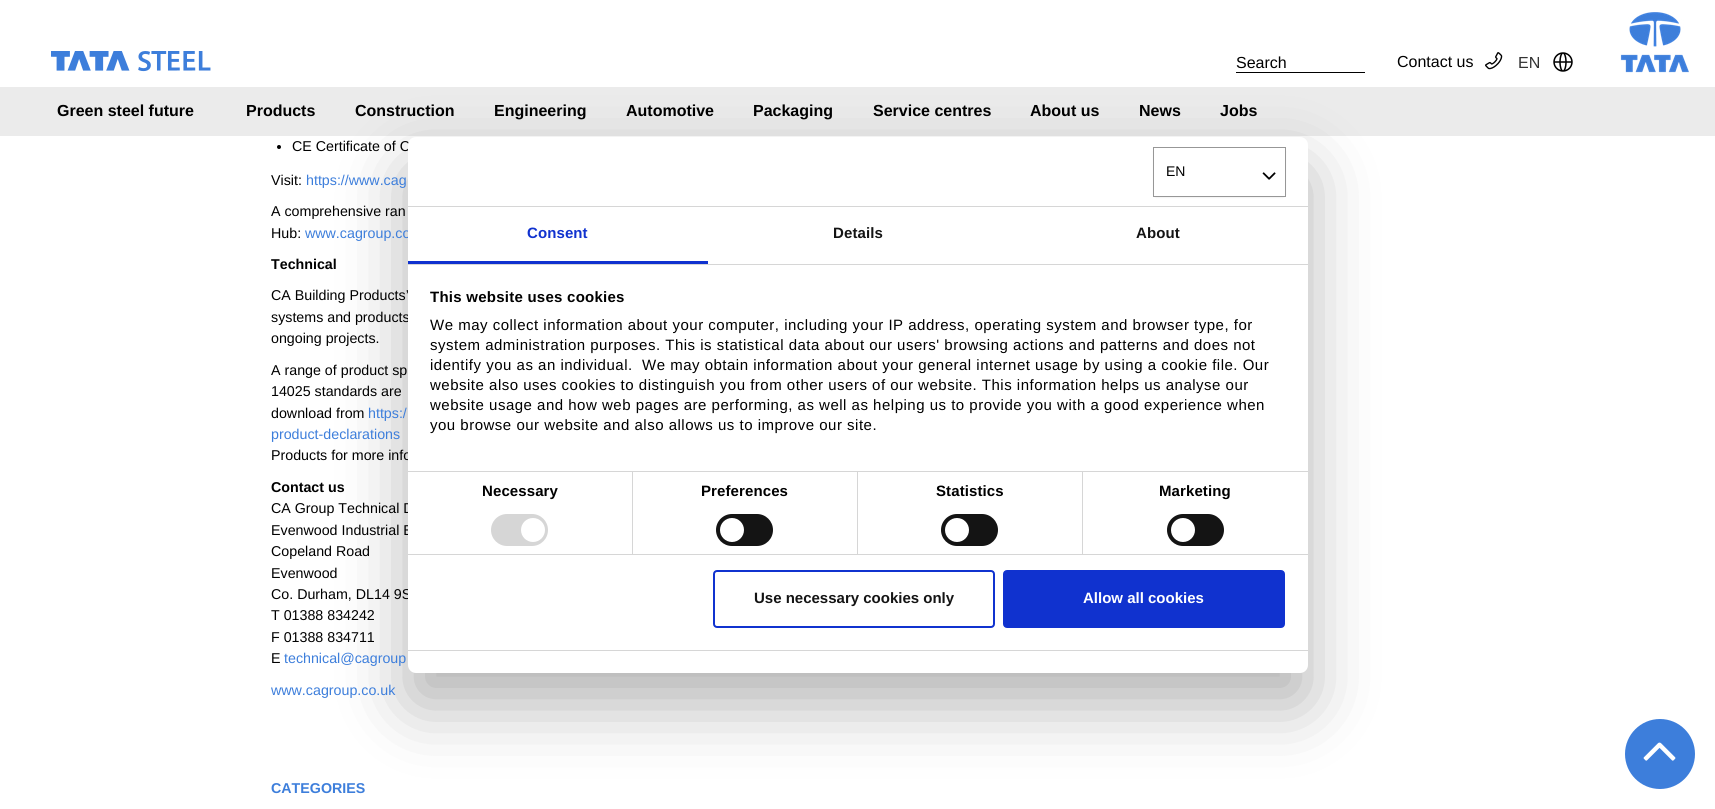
import math
import cairo


def use_color(cr, r, g, b):
  cr.set_source_rgb(r / 255, g / 255, b / 255)

def text(cr, x, y, s, family, size, color, bold=False, italic=False):
  cr.select_font_face(family, cairo.FONT_SLANT_ITALIC if italic else cairo.FONT_SLANT_NORMAL, cairo.FONT_WEIGHT_BOLD if bold else cairo.FONT_WEIGHT_NORMAL)
  cr.set_font_size(size)
  use_color(cr, *color)
  cr.move_to(x, y)
  cr.show_text(s)

def spaced_text(cr, x, y, s, letter, word):
  cr.move_to(x, y)
  for ch in s:
    cr.show_text(ch)
    cr.rel_move_to(letter + word * (ch == ' '), 0)

def box(cr, x, y, w, h, *color):
  use_color(cr, *color)
  cr.rectangle(x, y, w, h)
  cr.fill()

def round_rect(cr, x, y, w, h, r):
  cr.new_sub_path()
  for i, (u, v) in enumerate([(x + w - r, y + h - r), (x + r, y + h - r), (x + r, y + r), (x + w - r, y + r)]):
    cr.arc(u, v, r, i * math.pi / 2, (i + 1) * math.pi / 2)
  cr.close_path()

def shadow(cr, x, y, w, h, r, blur, alpha):
  cr.push_group_with_content(cairo.CONTENT_ALPHA)
  cr.set_operator(cairo.OPERATOR_SOURCE)
  for i in range(15, -16, -2):
    e = blur * i / 6
    if min(w, h) + 2 * e > 0:
      cr.set_source_rgba(0, 0, 0, alpha * math.erfc((i - 1) / 8.5) / 2)
      round_rect(cr, x - e, y - e, w + 2 * e, h + 2 * e, max(0, min(r + e + blur * .6, min(w, h) / 2 + e)))
      cr.fill()
  cr.mask(cr.pop_group())

def picture(cr, path, x, y, w, h):
  cr.save()
  cr.set_source_surface(cairo.ImageSurface.create_from_png(path), x, y)
  cr.rectangle(x, y, w, h)
  cr.fill()
  cr.restore()

def draw(cr):
  use_color(cr, 255, 255, 255)
  cr.paint()
  picture(cr, "img_01.png", 51, 51, 160, 21)
  box(cr, 0, 87, 1715, 49, 235, 235, 235)
  use_color(cr, 0, 0, 0)
  shadow(cr, 408, 169, 900, 536, 8, 34, 0.3)
  box(cr, 1236, 72, 129, 1, 0, 0, 0)
  picture(cr, "img_02.png", 1485, 52, 18, 18)
  picture(cr, "img_03.png", 1553, 52, 20, 20)
  picture(cr, "img_04.png", 1620, 12, 69, 61)
  cr.arc(279, 147, 2, 0, 2 * math.pi)
  cr.fill()
  use_color(cr, 61, 126, 219)
  cr.arc(1660, 754, 35, 0, 2 * math.pi)
  cr.fill()
  picture(cr, "img_06.png", 1643, 742, 33, 19)
  text(cr, 1236, 68, "Search", "Liberation Sans", 16, (0, 0, 0))
  text(cr, 1397, 67, "Contact us", "Liberation Sans", 16, (0, 0, 0))
  text(cr, 1518, 68, "EN", "Liberation Sans", 16, (51, 51, 51))
  text(cr, 57, 116, "Green steel future", "Liberation Sans", 16, (0, 0, 0), bold=True)
  text(cr, 246, 116, "Products", "Liberation Sans", 16, (0, 0, 0), bold=True)
  text(cr, 355, 116, "Construction", "Liberation Sans", 16, (0, 0, 0), bold=True)
  text(cr, 494, 116, "Engineering", "Liberation Sans", 16, (0, 0, 0), bold=True)
  text(cr, 626, 116, "Automotive", "Liberation Sans", 16, (0, 0, 0), bold=True)
  text(cr, 753, 116, "Packaging", "Liberation Sans", 16, (0, 0, 0), bold=True)
  text(cr, 873, 116, "Service centres", "Liberation Sans", 16, (0, 0, 0), bold=True)
  text(cr, 1030, 116, "About us", "Liberation Sans", 16, (0, 0, 0), bold=True)
  text(cr, 1139, 116, "News", "Liberation Sans", 16, (0, 0, 0), bold=True)
  text(cr, 1220, 116, "Jobs", "Liberation Sans", 16, (0, 0, 0), bold=True)
  text(cr, 292, 151, "CE Certificate of C", "Liberation Sans", 14.25, (0, 0, 0))
  text(cr, 271, 185, "Visit:", "Liberation Sans", 14.25, (0, 0, 0))
  text(cr, 306, 185, "https://www.cag", "Liberation Sans", 14.25, (61, 126, 219))
  text(cr, 271, 216, "A comprehensive ran", "Liberation Sans", 14.25, (0, 0, 0))
  text(cr, 271, 238, "Hub:", "Liberation Sans", 14.25, (0, 0, 0))
  text(cr, 305, 238, "www.cagroup.co", "Liberation Sans", 14.25, (61, 126, 219))
  text(cr, 271, 269, "Technical", "Liberation Sans", 14.25, (0, 0, 0), bold=True)
  text(cr, 271, 300, "CA Building Products’", "Liberation Sans", 14.25, (0, 0, 0))
  text(cr, 271, 322, "systems and products", "Liberation Sans", 14.25, (0, 0, 0))
  text(cr, 271, 343, "ongoing projects.", "Liberation Sans", 14.25, (0, 0, 0))
  text(cr, 271, 375, "A range of product sp", "Liberation Sans", 14.25, (0, 0, 0))
  text(cr, 271, 396, "14025 standards are", "Liberation Sans", 14.25, (0, 0, 0))
  text(cr, 271, 418, "download from", "Liberation Sans", 14.25, (0, 0, 0))
  text(cr, 368, 418, "https:/", "Liberation Sans", 14.25, (61, 126, 219))
  text(cr, 271, 439, "product-declarations", "Liberation Sans", 14.25, (61, 126, 219))
  text(cr, 271, 460, "Products for more info", "Liberation Sans", 14.25, (0, 0, 0))
  text(cr, 271, 492, "Contact us", "Liberation Sans", 14.25, (0, 0, 0), bold=True)
  text(cr, 271, 513, "CA Group Technical D", "Liberation Sans", 14.25, (0, 0, 0))
  text(cr, 271, 535, "Evenwood Industrial E", "Liberation Sans", 14.25, (0, 0, 0))
  text(cr, 271, 556, "Copeland Road", "Liberation Sans", 14.25, (0, 0, 0))
  text(cr, 271, 578, "Evenwood", "Liberation Sans", 14.25, (0, 0, 0))
  text(cr, 271, 599, "Co. Durham, DL14 9S", "Liberation Sans", 14.25, (0, 0, 0))
  text(cr, 271, 620, "T 01388 834242", "Liberation Sans", 14.25, (0, 0, 0))
  text(cr, 271, 642, "F 01388 834711", "Liberation Sans", 14.25, (0, 0, 0))
  text(cr, 271, 663, "E", "Liberation Sans", 14.25, (0, 0, 0))
  text(cr, 284, 663, "technical@cagroup", "Liberation Sans", 14.25, (61, 126, 219))
  text(cr, 271, 695, "www.cagroup.co.uk", "Liberation Sans", 14.25, (61, 126, 219))
  text(cr, 271, 793, "CATEGORIES", "Liberation Sans", 14.25, (61, 126, 219), bold=True)
  use_color(cr, 255, 255, 255)
  round_rect(cr, 408, 137, 900, 536, 8)
  cr.fill()
  box(cr, 408, 206, 900, 1, 214, 214, 214)
  use_color(cr, 0, 0, 0)
  shadow(cr, 1153, 148, 133, 50, 4, 0.5, 0.05)
  cr.rectangle(1153.5, 147.5, 132, 49)
  use_color(cr, 151, 151, 151)
  cr.set_line_width(1)
  cr.stroke()
  box(cr, 1154, 148, 131, 48, 255, 255, 255)
  text(cr, 1166, 176, "EN", "Liberation Sans", 14, (0, 0, 0))
  picture(cr, "img_05.png", 1262, 172, 14, 8)
  box(cr, 408, 264, 900, 1, 214, 214, 214)
  box(cr, 408, 261, 300, 3, 16, 50, 207)
  cr.select_font_face("Liberation Sans", cairo.FONT_SLANT_NORMAL, cairo.FONT_WEIGHT_BOLD)
  cr.set_font_size(15)
  spaced_text(cr, 527, 238, "Consent", 0.1, 0)
  use_color(cr, 20, 20, 20)
  spaced_text(cr, 833, 238, "Details", 0.1, 0)
  spaced_text(cr, 1136, 238, "About", 0.1, 0)
  box(cr, 408, 471, 900, 1, 214, 214, 214)
  use_color(cr, 0, 0, 0)
  spaced_text(cr, 430, 302, "This website uses cookies", 0.25, 0)
  cr.select_font_face("Liberation Sans")
  spaced_text(cr, 430, 330, "We may collect information about your computer, including your IP address, operating system and browser type, for", 0.5, 0)
  spaced_text(cr, 430, 350, "system administration purposes. This is statistical data about our users' browsing actions and patterns and does not", 0.5, 0)
  spaced_text(cr, 430, 370, "identify you as an individual.  We may obtain information about your general internet usage by using a cookie file. Our", 0.5, 0)
  spaced_text(cr, 430, 390, "website also uses cookies to distinguish you from other users of our website. This information helps us analyse our", 0.5, 0)
  spaced_text(cr, 430, 410, "website usage and how web pages are performing, as well as helping us to provide you with a good experience when", 0.5, 0)
  spaced_text(cr, 430, 430, "you browse our website and also allows us to improve our site.", 0.5, 0)
  box(cr, 408, 554, 900, 1, 214, 214, 214)
  box(cr, 632, 472, 1, 82, 214, 214, 214)
  cr.select_font_face("Liberation Sans", cairo.FONT_SLANT_NORMAL, cairo.FONT_WEIGHT_BOLD)
  use_color(cr, 0, 0, 0)
  spaced_text(cr, 482, 496, "Necessary", 0.1, 0)
  use_color(cr, 214, 214, 214)
  round_rect(cr, 491, 514, 57, 32, 16)
  cr.fill()
  use_color(cr, 255, 255, 255)
  cr.arc(533, 530, 12, 0, 2 * math.pi)
  cr.fill()
  box(cr, 857, 472, 1, 82, 214, 214, 214)
  use_color(cr, 0, 0, 0)
  spaced_text(cr, 701, 496, "Preferences", 0.1, 0)
  use_color(cr, 20, 20, 20)
  round_rect(cr, 716, 514, 57, 32, 16)
  cr.fill()
  use_color(cr, 255, 255, 255)
  cr.arc(732, 530, 12, 0, 2 * math.pi)
  cr.fill()
  box(cr, 1082, 472, 1, 82, 214, 214, 214)
  use_color(cr, 0, 0, 0)
  spaced_text(cr, 936, 496, "Statistics", 0.1, 0)
  use_color(cr, 20, 20, 20)
  round_rect(cr, 941, 514, 57, 32, 16)
  cr.fill()
  use_color(cr, 255, 255, 255)
  cr.arc(957, 530, 12, 0, 2 * math.pi)
  cr.fill()
  use_color(cr, 0, 0, 0)
  spaced_text(cr, 1159, 496, "Marketing", 0.1, 0)
  use_color(cr, 20, 20, 20)
  round_rect(cr, 1167, 514, 57, 32, 16)
  cr.fill()
  use_color(cr, 255, 255, 255)
  cr.arc(1183, 530, 12, 0, 2 * math.pi)
  cr.fill()
  box(cr, 408, 650, 900, 1, 214, 214, 214)
  round_rect(cr, 714, 571, 280, 56, 3)
  use_color(cr, 16, 50, 207)
  cr.set_line_width(2)
  cr.stroke()
  text(cr, 754, 603, "Use necessary cookies only", "Liberation Sans", 15, (20, 20, 20), bold=True)
  use_color(cr, 16, 50, 207)
  round_rect(cr, 1004, 571, 280, 56, 3)
  cr.fill_preserve()
  cr.stroke()
  text(cr, 1083, 603, "Allow all cookies", "Liberation Sans", 15, (255, 255, 255), bold=True)


surface = cairo.ImageSurface(cairo.FORMAT_RGB24, 1715, 809)
cr = cairo.Context(surface)
options = cairo.FontOptions()
options.set_hint_metrics(cairo.HINT_METRICS_OFF)
options.set_hint_style(cairo.HINT_STYLE_NONE)
cr.set_font_options(options)
cr.set_miter_limit(4)
draw(cr)
surface.write_to_png("out.png")
